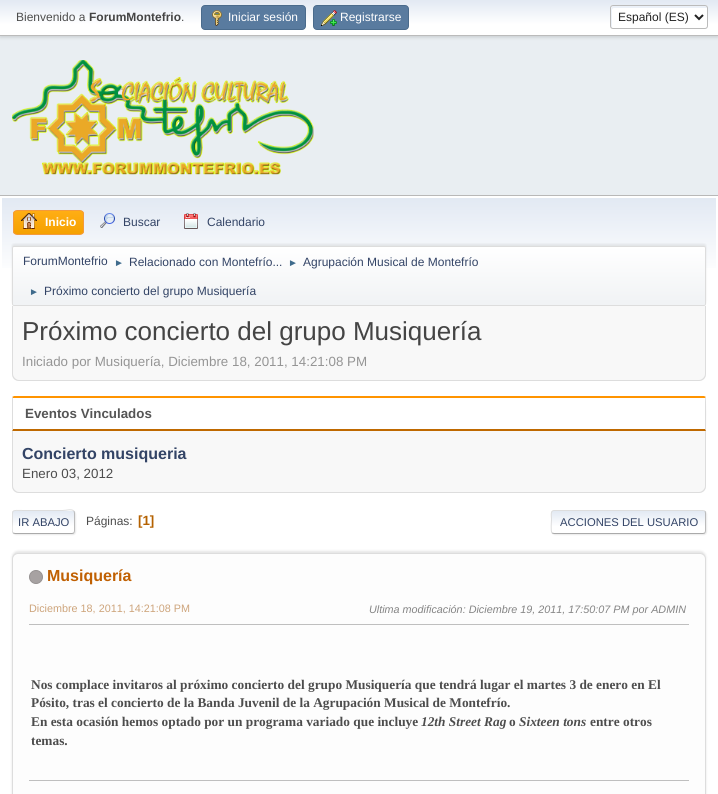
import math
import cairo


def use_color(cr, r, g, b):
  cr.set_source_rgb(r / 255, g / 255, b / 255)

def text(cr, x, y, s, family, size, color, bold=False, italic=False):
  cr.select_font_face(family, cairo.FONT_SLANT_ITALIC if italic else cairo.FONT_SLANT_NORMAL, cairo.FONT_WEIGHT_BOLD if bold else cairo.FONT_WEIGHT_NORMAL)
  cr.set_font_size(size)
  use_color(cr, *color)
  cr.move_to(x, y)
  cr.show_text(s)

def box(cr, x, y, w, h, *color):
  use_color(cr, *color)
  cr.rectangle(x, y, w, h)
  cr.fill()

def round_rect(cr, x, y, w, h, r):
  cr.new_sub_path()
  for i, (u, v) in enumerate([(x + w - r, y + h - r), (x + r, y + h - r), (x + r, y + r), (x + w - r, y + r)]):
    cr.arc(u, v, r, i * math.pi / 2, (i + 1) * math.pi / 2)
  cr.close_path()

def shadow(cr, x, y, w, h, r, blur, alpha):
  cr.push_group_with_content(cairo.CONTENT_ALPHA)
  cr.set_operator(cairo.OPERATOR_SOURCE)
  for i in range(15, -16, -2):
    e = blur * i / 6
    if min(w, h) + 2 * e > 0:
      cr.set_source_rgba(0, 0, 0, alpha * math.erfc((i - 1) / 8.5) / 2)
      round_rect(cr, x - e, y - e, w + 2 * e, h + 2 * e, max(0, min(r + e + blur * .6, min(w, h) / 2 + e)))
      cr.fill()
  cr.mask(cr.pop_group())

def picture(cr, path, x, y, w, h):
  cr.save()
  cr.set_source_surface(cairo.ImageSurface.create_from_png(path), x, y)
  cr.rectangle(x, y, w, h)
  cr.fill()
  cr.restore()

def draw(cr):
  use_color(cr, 233, 238, 242)
  cr.paint()
  use_color(cr, 0, 0, 0)
  shadow(cr, 0, 1, 718, 36, 0, 2, 0.16)
  gradient = cairo.LinearGradient(359, 0, 359, 35)
  gradient.add_color_stop_rgba(0, 0.886, 0.914, 0.953, 1)
  gradient.add_color_stop_rgba(0.7, 1, 1, 1, 1)
  cr.set_source(gradient)
  cr.rectangle(0, 0, 718, 35)
  cr.fill()
  box(cr, 0, 35, 718, 1, 187, 187, 187)
  use_color(cr, 89, 123, 159)
  round_rect(cr, 201.5, 5.5, 104, 24, 3.5)
  cr.fill_preserve()
  use_color(cr, 74, 107, 140)
  cr.set_line_width(1)
  cr.stroke()
  picture(cr, "img_01.png", 212, 10, 10, 16)
  use_color(cr, 89, 123, 159)
  round_rect(cr, 313.5, 5.5, 95, 24, 3.5)
  cr.fill_preserve()
  use_color(cr, 74, 107, 140)
  cr.stroke()
  picture(cr, "img_02.png", 321, 10, 16, 16)
  use_color(cr, 255, 255, 255)
  round_rect(cr, 610, 5, 98, 24, 3)
  cr.fill()
  use_color(cr, 236, 241, 248)
  cr.new_path()
  cr.move_to(614, 8)
  cr.line_to(707, 8)
  cr.curve_to(707, 3, 694, 6, 690, 6)
  cr.line_to(628, 6)
  cr.curve_to(610, 6, 611, 2, 611, 17)
  cr.curve_to(611, 19, 610, 27, 612, 28)
  cr.line_to(612, 10)
  cr.curve_to(612, 9, 613, 8, 614, 8)
  cr.close_path()
  cr.fill()
  round_rect(cr, 610.5, 5.5, 97, 23, 2.5)
  use_color(cr, 187, 187, 187)
  cr.stroke()
  cr.new_path()
  cr.move_to(695, 15)
  cr.line_to(699, 19)
  cr.line_to(703, 15)
  use_color(cr, 34, 34, 34)
  cr.set_line_width(2)
  cr.stroke()
  picture(cr, "img_03.png", 12, 60, 302, 115)
  box(cr, 0, 196, 718, 598, 255, 255, 255)
  box(cr, 0, 195, 718, 1, 184, 184, 184)
  gradient = cairo.LinearGradient(359, 198, 359, 308)
  gradient.add_color_stop_rgba(0, 0.886, 0.914, 0.953, 1)
  gradient.add_color_stop_rgba(0.7, 1, 1, 1, 1)
  cr.set_source(gradient)
  cr.rectangle(2, 198, 714, 70)
  cr.fill()
  cr.save()
  round_rect(cr, 13, 210, 71, 25, 4)
  cr.clip()
  gradient = cairo.LinearGradient(49, 211, 49, 234)
  gradient.add_color_stop_rgba(0, 1, 0.682, 0.078, 1)
  gradient.add_color_stop_rgba(1, 0.961, 0.631, 0, 1)
  cr.set_source(gradient)
  cr.rectangle(13, 211, 71, 23)
  cr.fill()
  cr.restore()
  round_rect(cr, 13.5, 210.5, 70, 24, 3.5)
  use_color(cr, 244, 154, 58)
  cr.set_line_width(1)
  cr.stroke()
  picture(cr, "img_04.png", 21, 213, 16, 16)
  picture(cr, "img_05.png", 100, 213, 15, 15)
  picture(cr, "img_06.png", 184, 213, 14, 16)
  use_color(cr, 0, 0, 0)
  shadow(cr, 12, 244, 694, 60, 2, 1, 0.08)
  cr.save()
  round_rect(cr, 12, 246, 694, 60, 2)
  cr.clip()
  gradient = cairo.LinearGradient(359, 247, 359, 305)
  gradient.add_color_stop_rgba(0, 1, 1, 1, 1)
  gradient.add_color_stop_rgba(0.95, 0.945, 0.953, 0.961, 1)
  cr.set_source(gradient)
  cr.rectangle(12, 247, 694, 58)
  cr.fill()
  cr.restore()
  round_rect(cr, 12.5, 246.5, 693, 59, 1.5)
  use_color(cr, 221, 221, 221)
  cr.stroke()
  use_color(cr, 248, 248, 248)
  cr.new_path()
  cr.move_to(12, 306)
  cr.line_to(706, 306)
  cr.line_to(706, 374)
  cr.curve_to(706, 378, 703, 381, 699, 381)
  cr.line_to(19, 381)
  cr.curve_to(15, 381, 12, 378, 12, 374)
  cr.close_path()
  cr.fill()
  use_color(cr, 221, 221, 221)
  cr.set_fill_rule(cairo.FILL_RULE_EVEN_ODD)
  cr.new_path()
  cr.move_to(12, 306)
  cr.line_to(706, 306)
  cr.line_to(706, 374)
  cr.curve_to(706, 378, 703, 381, 699, 381)
  cr.line_to(19, 381)
  cr.curve_to(15, 381, 12, 378, 12, 374)
  cr.close_path()
  cr.move_to(13, 306)
  cr.line_to(705, 306)
  cr.line_to(705, 374)
  cr.curve_to(705, 377, 702, 380, 699, 380)
  cr.line_to(19, 380)
  cr.curve_to(16, 380, 13, 377, 13, 374)
  cr.close_path()
  cr.fill()
  use_color(cr, 255, 148, 0)
  cr.set_fill_rule(cairo.FILL_RULE_WINDING)
  cr.new_path()
  cr.move_to(14, 396)
  cr.line_to(12, 397)
  cr.line_to(13, 398)
  cr.line_to(705, 398)
  cr.line_to(706, 397)
  cr.line_to(704, 396)
  cr.close_path()
  cr.fill()
  use_color(cr, 221, 221, 221)
  cr.new_path()
  cr.move_to(706, 431)
  cr.curve_to(706, 427, 706.5, 398, 705.5, 397)
  cr.line_to(705, 398)
  cr.line_to(705, 429)
  cr.close_path()
  cr.fill()
  use_color(cr, 191, 105, 0)
  cr.new_path()
  cr.move_to(706, 431)
  cr.line_to(705, 429)
  cr.line_to(13, 429)
  cr.line_to(12, 431)
  cr.close_path()
  cr.fill()
  use_color(cr, 221, 221, 221)
  cr.new_path()
  cr.move_to(12, 431)
  cr.line_to(13, 429)
  cr.line_to(13, 398)
  cr.line_to(12.5, 397)
  cr.line_to(12, 398)
  cr.close_path()
  cr.fill()
  use_color(cr, 248, 248, 248)
  cr.new_path()
  cr.move_to(12, 431)
  cr.line_to(706, 431)
  cr.line_to(706, 486)
  cr.curve_to(706, 490, 703, 493, 699, 493)
  cr.line_to(19, 493)
  cr.curve_to(15, 493, 12, 490, 12, 486)
  cr.close_path()
  cr.fill()
  use_color(cr, 221, 221, 221)
  cr.set_fill_rule(cairo.FILL_RULE_EVEN_ODD)
  cr.new_path()
  cr.move_to(12, 431)
  cr.line_to(706, 431)
  cr.line_to(706, 486)
  cr.curve_to(706, 490, 703, 493, 699, 493)
  cr.line_to(19, 493)
  cr.curve_to(15, 493, 12, 490, 12, 486)
  cr.close_path()
  cr.move_to(13, 431)
  cr.line_to(705, 431)
  cr.line_to(705, 486)
  cr.curve_to(705, 489, 702, 492, 699, 492)
  cr.line_to(19, 492)
  cr.curve_to(16, 492, 13, 489, 13, 486)
  cr.close_path()
  cr.fill()
  use_color(cr, 221, 221, 221)
  shadow(cr, 13, 511, 63, 24, 3, 0.5, 0.57)
  use_color(cr, 255, 255, 255)
  round_rect(cr, 12, 510, 63, 24, 3)
  cr.fill()
  cr.save()
  cr.set_fill_rule(cairo.FILL_RULE_WINDING)
  round_rect(cr, 12, 510, 63, 24, 3)
  cr.clip()
  gradient = cairo.LinearGradient(44, 511, 44, 533)
  gradient.add_color_stop_rgba(0, 0.886, 0.914, 0.953, 1)
  gradient.add_color_stop_rgba(0.7, 1, 1, 1, 1)
  cr.set_source(gradient)
  cr.rectangle(12, 511, 63, 22)
  cr.fill()
  cr.restore()
  cr.new_path()
  cr.move_to(74, 511)
  cr.curve_to(74, 511.5, 74.5, 512.5, 74.5, 513)
  cr.line_to(74.5, 531)
  cr.curve_to(74.5, 531.5, 74, 532.5, 74, 533)
  use_color(cr, 187, 187, 187)
  cr.stroke()
  cr.new_path()
  cr.move_to(74, 533)
  cr.line_to(72, 533.5)
  cr.line_to(15, 533.5)
  cr.line_to(13, 533)
  use_color(cr, 170, 170, 170)
  cr.stroke()
  cr.save()
  cr.set_fill_rule(cairo.FILL_RULE_WINDING)
  cr.rectangle(12, 503, 694, 38)
  cr.clip()
  cr.new_path()
  cr.move_to(13, 533)
  cr.curve_to(11.5, 531, 12.5, 524, 12.5, 522)
  cr.curve_to(12.5, 508.5, 10.5, 510.5, 24.5, 510.5)
  cr.line_to(62.5, 510.5)
  cr.curve_to(66.5, 510.5, 71, 508.5, 74, 511)
  use_color(cr, 221, 221, 221)
  cr.stroke()
  cr.restore()
  cr.save()
  cr.new_path()
  cr.move_to(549, 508)
  cr.line_to(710, 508)
  cr.line_to(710, 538)
  cr.line_to(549, 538)
  cr.close_path()
  cr.move_to(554, 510)
  cr.line_to(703, 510)
  cr.curve_to(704.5, 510, 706, 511.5, 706, 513)
  cr.line_to(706, 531)
  cr.curve_to(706, 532.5, 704.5, 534, 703, 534)
  cr.line_to(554, 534)
  cr.curve_to(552.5, 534, 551, 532.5, 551, 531)
  cr.line_to(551, 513)
  cr.curve_to(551, 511.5, 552.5, 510, 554, 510)
  cr.close_path()
  cr.clip()
  use_color(cr, 221, 221, 221)
  shadow(cr, 552, 511, 155, 24, 3, 0.5, 0.57)
  cr.restore()
  cr.save()
  cr.set_fill_rule(cairo.FILL_RULE_WINDING)
  round_rect(cr, 551, 510, 155, 24, 3)
  cr.clip()
  gradient = cairo.LinearGradient(629, 511, 629, 533)
  gradient.add_color_stop_rgba(0, 0.886, 0.914, 0.953, 1)
  gradient.add_color_stop_rgba(0.7, 1, 1, 1, 1)
  cr.set_source(gradient)
  cr.rectangle(551, 511, 155, 22)
  cr.fill()
  cr.restore()
  cr.new_path()
  cr.move_to(705, 511)
  cr.curve_to(705, 511.5, 705.5, 512.5, 705.5, 513)
  cr.line_to(705.5, 531)
  cr.curve_to(705.5, 531.5, 705, 532.5, 705, 533)
  use_color(cr, 187, 187, 187)
  cr.stroke()
  cr.new_path()
  cr.move_to(705, 533)
  cr.line_to(703, 533.5)
  cr.line_to(554, 533.5)
  cr.line_to(552, 533)
  use_color(cr, 170, 170, 170)
  cr.stroke()
  cr.new_path()
  cr.move_to(552, 533)
  cr.curve_to(550.5, 531, 551.5, 521.5, 551.5, 519)
  cr.curve_to(551.5, 517, 550, 510.5, 554, 510.5)
  cr.line_to(703, 510.5)
  cr.line_to(705, 511)
  use_color(cr, 221, 221, 221)
  cr.stroke()
  use_color(cr, 0, 0, 0)
  shadow(cr, 12, 551, 694, 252, 6, 1, 0.1)
  use_color(cr, 253, 253, 253)
  round_rect(cr, 12.5, 553.5, 693, 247, 5.5)
  cr.fill_preserve()
  use_color(cr, 221, 221, 221)
  cr.stroke()
  use_color(cr, 167, 162, 162)
  cr.arc(36, 577, 6.5, 0, 2 * math.pi)
  cr.fill_preserve()
  use_color(cr, 150, 146, 146)
  cr.stroke()
  box(cr, 29, 624, 660, 1, 191, 191, 191)
  box(cr, 29, 780, 660, 1, 191, 191, 191)
  text(cr, 16, 21, "Bienvenido a", "Liberation Sans", 12, (77, 77, 77))
  text(cr, 89, 21, "ForumMontefrio", "Liberation Sans", 12, (68, 68, 68), bold=True)
  text(cr, 181, 21, ".", "Liberation Sans", 12, (77, 77, 77))
  text(cr, 228, 21, "Iniciar sesión", "Liberation Sans", 12, (255, 255, 255))
  text(cr, 340, 21, "Registrarse", "Liberation Sans", 12, (255, 255, 255))
  text(cr, 618, 21, "Español (ES)", "Liberation Sans", 12, (34, 34, 34))
  text(cr, 45, 226, "Inicio", "Liberation Sans", 12, (255, 255, 255), bold=True)
  text(cr, 123, 226, "Buscar", "Liberation Sans", 12, (51, 68, 102))
  text(cr, 207, 226, "Calendario", "Liberation Sans", 12, (51, 68, 102))
  text(cr, 23, 265, "ForumMontefrio", "Liberation Sans", 12, (51, 68, 102))
  text(cr, 114, 266, "►", "Liberation Sans", 10, (63, 107, 140))
  text(cr, 129, 266, "Relacionado con Montefrío...", "Liberation Sans", 12, (51, 68, 102))
  text(cr, 288, 266, "►", "Liberation Sans", 10, (63, 107, 140))
  text(cr, 303, 266, "Agrupación Musical de Montefrío", "Liberation Sans", 12, (51, 68, 102))
  text(cr, 29, 295, "►", "Liberation Sans", 10, (63, 107, 140))
  text(cr, 44, 295, "Próximo concierto del grupo Musiquería", "Liberation Sans", 12, (51, 68, 102))
  text(cr, 22, 340, "Próximo concierto del grupo Musiquería", "Liberation Sans", 26, (68, 68, 68))
  text(cr, 22, 366, "Iniciado por Musiquería, Diciembre 18, 2011, 14:21:08 PM", "Liberation Sans", 13.35, (149, 149, 149))
  text(cr, 25, 418, "Eventos Vinculados", "Liberation Sans", 13.35, (85, 85, 85), bold=True)
  text(cr, 22, 459, "Concierto musiqueria", "Liberation Sans", 16, (51, 68, 102), bold=True)
  text(cr, 22, 478, "Enero 03, 2012", "Liberation Sans", 13.35, (77, 77, 77))
  text(cr, 18, 526, "IR ABAJO", "Liberation Sans", 11.25, (51, 68, 102))
  text(cr, 86, 525, "Páginas:", "Liberation Sans", 12, (77, 77, 77))
  text(cr, 138, 525, "[1]", "Liberation Sans", 13.35, (180, 97, 0), bold=True)
  text(cr, 560, 526, "ACCIONES DEL USUARIO", "Liberation Sans", 11.25, (51, 68, 102))
  text(cr, 47, 581, "Musiquería", "Liberation Sans", 16, (192, 96, 2), bold=True)
  text(cr, 29, 612, "Diciembre 18, 2011, 14:21:08 PM", "Liberation Sans", 10.8, (205, 164, 123))
  text(cr, 369, 613, "Ultima modificación: Diciembre 19, 2011, 17:50:07 PM por ADMIN", "Liberation Sans", 10.8, (132, 132, 132), italic=True)
  text(cr, 31, 689, "Nos complace invitaros al próximo concierto del grupo Musiquería que tendrá lugar el martes 3 de enero en El", "Liberation Serif", 13.35, (77, 77, 77), bold=True)
  text(cr, 31, 707, "Pósito, tras el concierto de la Banda Juvenil de la Agrupación Musical de Montefrío.", "Liberation Serif", 13.35, (77, 77, 77), bold=True)
  text(cr, 31, 726, "En esta ocasión hemos optado por un programa variado que incluye", "Liberation Serif", 13.35, (77, 77, 77), bold=True)
  text(cr, 421, 726, "12th Street Rag", "Liberation Serif", 13.35, (77, 77, 77), bold=True, italic=True)
  text(cr, 509, 726, "o", "Liberation Serif", 13.35, (77, 77, 77), bold=True)
  text(cr, 519, 726, "Sixteen tons", "Liberation Serif", 13.35, (77, 77, 77), bold=True, italic=True)
  text(cr, 590, 726, "entre otros", "Liberation Serif", 13.35, (77, 77, 77), bold=True)
  text(cr, 31, 745, "temas.", "Liberation Serif", 13.35, (77, 77, 77), bold=True)


surface = cairo.ImageSurface(cairo.FORMAT_RGB24, 718, 794)
cr = cairo.Context(surface)
options = cairo.FontOptions()
options.set_hint_metrics(cairo.HINT_METRICS_OFF)
options.set_hint_style(cairo.HINT_STYLE_NONE)
cr.set_font_options(options)
cr.set_miter_limit(4)
draw(cr)
surface.write_to_png("out.png")
